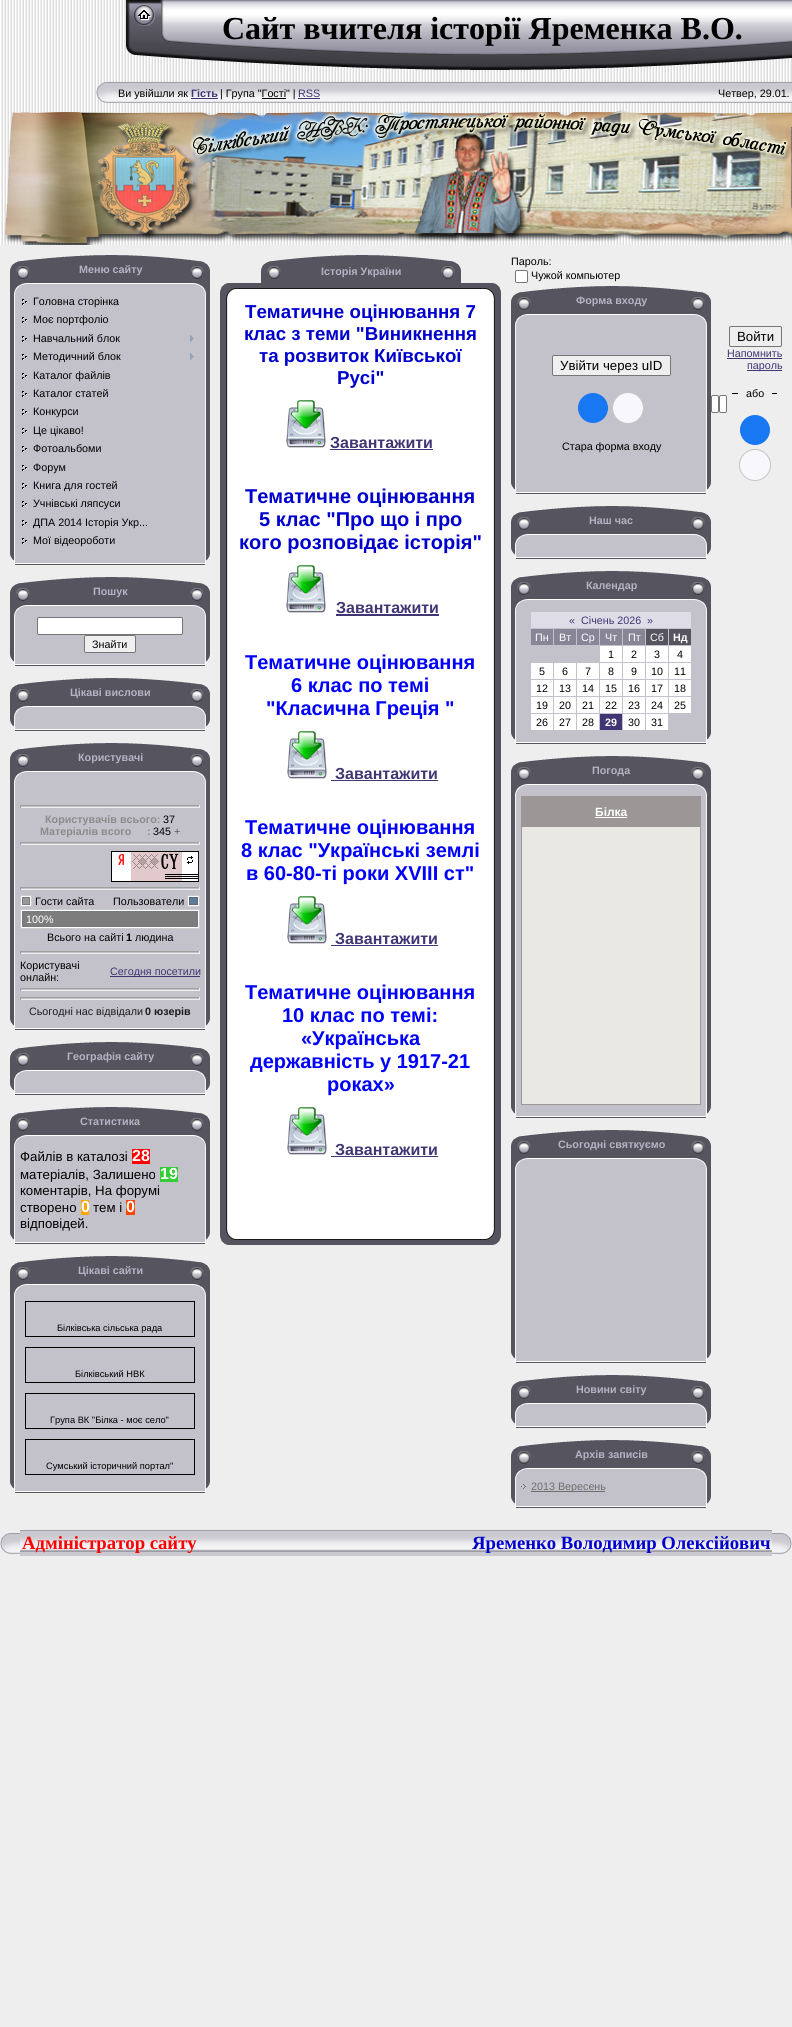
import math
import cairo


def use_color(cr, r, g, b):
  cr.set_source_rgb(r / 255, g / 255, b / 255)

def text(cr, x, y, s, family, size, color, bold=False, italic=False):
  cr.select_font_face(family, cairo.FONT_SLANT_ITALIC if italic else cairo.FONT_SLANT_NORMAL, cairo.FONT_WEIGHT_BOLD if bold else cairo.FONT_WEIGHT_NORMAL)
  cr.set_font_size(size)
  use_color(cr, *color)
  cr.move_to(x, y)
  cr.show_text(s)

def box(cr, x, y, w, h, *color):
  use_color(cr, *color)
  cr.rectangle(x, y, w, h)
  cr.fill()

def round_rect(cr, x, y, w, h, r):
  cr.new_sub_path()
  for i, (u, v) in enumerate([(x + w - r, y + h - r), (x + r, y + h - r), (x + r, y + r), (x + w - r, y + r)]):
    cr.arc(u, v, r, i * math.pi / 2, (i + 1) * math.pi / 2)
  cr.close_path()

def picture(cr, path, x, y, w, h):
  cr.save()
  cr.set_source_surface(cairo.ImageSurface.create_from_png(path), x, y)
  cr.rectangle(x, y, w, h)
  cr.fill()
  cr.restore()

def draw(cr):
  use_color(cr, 238, 238, 238)
  cr.paint()
  picture(cr, "img_01.png", 0, 0, 792, 245)
  picture(cr, "img_02.png", 126, 0, 37, 57)
  picture(cr, "img_03.png", 134, 5, 21, 21)
  picture(cr, "img_04.png", 163, 0, 629, 70)
  picture(cr, "img_05.png", 96, 82, 20, 21)
  picture(cr, "img_06.png", 116, 82, 676, 21)
  box(cr, 191, 98, 27, 1, 65, 53, 116)
  box(cr, 298, 98, 22, 1, 65, 53, 116)
  box(cr, 262, 98, 24, 1, 0, 0, 0)
  picture(cr, "img_07.png", 4, 110, 788, 135)
  picture(cr, "img_08.png", 10, 255, 200, 40)
  picture(cr, "img_09.png", 10, 295, 200, 257)
  picture(cr, "img_10.png", 22, 299, 5, 6)
  picture(cr, "img_10.png", 22, 317, 5, 6)
  picture(cr, "img_10.png", 22, 336, 5, 6)
  picture(cr, "img_11.png", 190, 335, 4, 7)
  picture(cr, "img_10.png", 22, 354, 5, 6)
  picture(cr, "img_11.png", 190, 353, 4, 7)
  picture(cr, "img_10.png", 22, 373, 5, 6)
  picture(cr, "img_10.png", 22, 391, 5, 6)
  picture(cr, "img_10.png", 22, 409, 5, 6)
  picture(cr, "img_10.png", 22, 428, 5, 6)
  picture(cr, "img_10.png", 22, 446, 5, 6)
  picture(cr, "img_10.png", 22, 465, 5, 6)
  picture(cr, "img_10.png", 22, 483, 5, 6)
  picture(cr, "img_10.png", 22, 501, 5, 6)
  picture(cr, "img_10.png", 22, 520, 5, 6)
  picture(cr, "img_10.png", 22, 538, 5, 6)
  picture(cr, "img_12.png", 10, 552, 200, 13)
  picture(cr, "img_08.png", 10, 577, 200, 40)
  picture(cr, "img_13.png", 10, 617, 200, 36)
  use_color(cr, 255, 255, 255)
  round_rect(cr, 37.5, 617.5, 145, 17, 1.5)
  cr.fill_preserve()
  use_color(cr, 118, 118, 118)
  cr.set_line_width(1)
  cr.stroke()
  use_color(cr, 239, 239, 239)
  round_rect(cr, 84.5, 635.5, 51, 17, 1.5)
  cr.fill_preserve()
  use_color(cr, 118, 118, 118)
  cr.stroke()
  picture(cr, "img_12.png", 10, 653, 200, 13)
  picture(cr, "img_08.png", 10, 678, 200, 40)
  picture(cr, "img_12.png", 10, 718, 200, 13)
  picture(cr, "img_08.png", 10, 743, 200, 40)
  picture(cr, "img_14.png", 10, 783, 200, 234)
  box(cr, 20, 805, 180, 1, 159, 159, 159)
  box(cr, 199, 805, 1, 3, 238, 238, 238)
  box(cr, 20, 807, 180, 1, 238, 238, 238)
  box(cr, 20, 805, 1, 3, 159, 159, 159)
  box(cr, 20, 842, 180, 1, 159, 159, 159)
  box(cr, 199, 842, 1, 3, 238, 238, 238)
  box(cr, 20, 844, 180, 1, 238, 238, 238)
  box(cr, 20, 842, 1, 3, 159, 159, 159)
  picture(cr, "img_15.png", 111, 851, 88, 31)
  box(cr, 20, 887, 180, 1, 159, 159, 159)
  box(cr, 199, 887, 1, 3, 238, 238, 238)
  box(cr, 20, 889, 180, 1, 238, 238, 238)
  box(cr, 20, 887, 1, 3, 159, 159, 159)
  use_color(cr, 255, 255, 255)
  cr.rectangle(20.5, 895.5, 11, 11)
  cr.fill_preserve()
  use_color(cr, 204, 204, 204)
  cr.stroke()
  use_color(cr, 153, 153, 153)
  cr.rectangle(22.5, 897.5, 7, 7)
  cr.fill_preserve()
  use_color(cr, 117, 123, 127)
  cr.stroke()
  use_color(cr, 255, 255, 255)
  cr.rectangle(187.5, 895.5, 12, 11)
  cr.fill_preserve()
  use_color(cr, 204, 204, 204)
  cr.stroke()
  use_color(cr, 96, 124, 153)
  cr.rectangle(189.5, 897.5, 8, 7)
  cr.fill_preserve()
  use_color(cr, 88, 106, 124)
  cr.stroke()
  use_color(cr, 255, 255, 255)
  cr.rectangle(20.5, 909.5, 179, 19)
  cr.fill_preserve()
  use_color(cr, 204, 204, 204)
  cr.stroke()
  use_color(cr, 125, 125, 125)
  cr.rectangle(22.5, 911.5, 175, 15)
  cr.fill_preserve()
  use_color(cr, 117, 123, 127)
  cr.stroke()
  box(cr, 20, 951, 180, 1, 159, 159, 159)
  box(cr, 199, 951, 1, 3, 238, 238, 238)
  box(cr, 20, 953, 180, 1, 238, 238, 238)
  box(cr, 20, 951, 1, 3, 159, 159, 159)
  box(cr, 110, 976, 90, 1, 65, 53, 116)
  box(cr, 20, 988, 180, 1, 159, 159, 159)
  box(cr, 199, 988, 1, 3, 238, 238, 238)
  box(cr, 20, 990, 180, 1, 238, 238, 238)
  box(cr, 20, 988, 1, 3, 159, 159, 159)
  box(cr, 20, 997, 180, 1, 159, 159, 159)
  box(cr, 199, 997, 1, 3, 238, 238, 238)
  box(cr, 20, 999, 180, 1, 238, 238, 238)
  box(cr, 20, 997, 1, 3, 159, 159, 159)
  picture(cr, "img_08.png", 10, 1042, 200, 40)
  picture(cr, "img_12.png", 10, 1082, 200, 13)
  picture(cr, "img_08.png", 10, 1107, 200, 40)
  picture(cr, "img_16.png", 10, 1147, 200, 84)
  box(cr, 132, 1149, 18, 15, 255, 0, 0)
  box(cr, 160, 1167, 18, 15, 50, 205, 50)
  box(cr, 81, 1200, 8, 15, 255, 165, 0)
  box(cr, 126, 1200, 9, 15, 255, 69, 0)
  picture(cr, "img_12.png", 10, 1231, 200, 13)
  picture(cr, "img_08.png", 10, 1256, 200, 40)
  picture(cr, "img_17.png", 10, 1296, 200, 184)
  cr.rectangle(25.5, 1301.5, 169, 35)
  use_color(cr, 0, 0, 0)
  cr.stroke()
  cr.rectangle(25.5, 1347.5, 169, 35)
  cr.stroke()
  cr.rectangle(25.5, 1393.5, 169, 35)
  cr.stroke()
  cr.rectangle(25.5, 1439.5, 169, 35)
  cr.stroke()
  picture(cr, "img_12.png", 10, 1480, 200, 13)
  picture(cr, "img_18.png", 261, 255, 200, 28)
  picture(cr, "img_19.png", 220, 283, 18, 18)
  picture(cr, "img_20.png", 238, 283, 245, 18)
  picture(cr, "img_21.png", 483, 283, 18, 18)
  picture(cr, "img_22.png", 220, 301, 18, 926)
  box(cr, 238, 301, 245, 926, 255, 255, 255)
  picture(cr, "img_23.png", 286, 400, 40, 48)
  box(cr, 330, 449, 103, 1, 65, 53, 116)
  picture(cr, "img_23.png", 286, 565, 40, 48)
  box(cr, 336, 614, 103, 2, 65, 53, 116)
  picture(cr, "img_23.png", 287, 731, 40, 48)
  box(cr, 331, 780, 107, 1, 65, 53, 116)
  picture(cr, "img_23.png", 287, 896, 40, 48)
  box(cr, 331, 945, 107, 1, 65, 53, 116)
  picture(cr, "img_23.png", 287, 1107, 40, 48)
  box(cr, 331, 1156, 107, 1, 65, 53, 116)
  picture(cr, "img_24.png", 483, 301, 18, 926)
  picture(cr, "img_25.png", 220, 1227, 18, 18)
  picture(cr, "img_26.png", 238, 1227, 245, 18)
  picture(cr, "img_27.png", 483, 1227, 18, 18)
  use_color(cr, 255, 255, 255)
  round_rect(cr, 515.5, 270.5, 12, 12, 1.5)
  cr.fill_preserve()
  use_color(cr, 118, 118, 118)
  cr.stroke()
  picture(cr, "img_08.png", 511, 286, 200, 40)
  picture(cr, "img_28.png", 511, 326, 200, 155)
  use_color(cr, 239, 239, 239)
  round_rect(cr, 552.5, 355.5, 118, 20, 1.5)
  cr.fill_preserve()
  use_color(cr, 118, 118, 118)
  cr.stroke()
  use_color(cr, 24, 119, 242)
  cr.arc(593, 408, 15, 0, 2 * math.pi)
  cr.fill()
  use_color(cr, 248, 248, 252)
  cr.arc(628, 408, 15.5, 0, 2 * math.pi)
  cr.fill_preserve()
  use_color(cr, 196, 196, 196)
  cr.stroke()
  use_color(cr, 255, 255, 255)
  round_rect(cr, 711.5, 395.5, 7, 17, 1.5)
  cr.fill_preserve()
  use_color(cr, 118, 118, 118)
  cr.stroke()
  use_color(cr, 255, 255, 255)
  round_rect(cr, 719.5, 395.5, 7, 17, 1.5)
  cr.fill_preserve()
  use_color(cr, 118, 118, 118)
  cr.stroke()
  round_rect(cr, 729.5, 326.5, 52, 20, 1.5)
  cr.stroke()
  box(cr, 727, 358, 55, 1, 65, 53, 116)
  box(cr, 747, 370, 35, 1, 65, 53, 116)
  box(cr, 732, 393, 6, 1, 0, 0, 0)
  box(cr, 772, 393, 5, 1, 0, 0, 0)
  use_color(cr, 24, 119, 242)
  cr.arc(755, 430, 15, 0, 2 * math.pi)
  cr.fill()
  use_color(cr, 248, 248, 252)
  cr.arc(755, 465, 15.5, 0, 2 * math.pi)
  cr.fill_preserve()
  use_color(cr, 196, 196, 196)
  cr.stroke()
  picture(cr, "img_12.png", 511, 481, 200, 13)
  picture(cr, "img_08.png", 511, 506, 200, 40)
  picture(cr, "img_12.png", 511, 546, 200, 13)
  picture(cr, "img_08.png", 511, 571, 200, 40)
  picture(cr, "img_29.png", 511, 611, 200, 120)
  box(cr, 531, 612, 160, 16, 222, 220, 230)
  box(cr, 531, 629, 22, 16, 136, 133, 150)
  box(cr, 554, 629, 22, 16, 136, 133, 150)
  box(cr, 577, 629, 22, 16, 136, 133, 150)
  box(cr, 600, 629, 22, 16, 136, 133, 150)
  box(cr, 623, 629, 22, 16, 136, 133, 150)
  box(cr, 646, 629, 22, 16, 86, 84, 95)
  box(cr, 669, 629, 22, 16, 86, 84, 95)
  box(cr, 600, 646, 22, 16, 255, 255, 255)
  box(cr, 623, 646, 22, 16, 255, 255, 255)
  box(cr, 646, 646, 22, 16, 255, 255, 255)
  box(cr, 669, 646, 22, 16, 255, 255, 255)
  box(cr, 531, 663, 22, 16, 255, 255, 255)
  box(cr, 554, 663, 22, 16, 255, 255, 255)
  box(cr, 577, 663, 22, 16, 255, 255, 255)
  box(cr, 600, 663, 22, 16, 255, 255, 255)
  box(cr, 623, 663, 22, 16, 255, 255, 255)
  box(cr, 646, 663, 22, 16, 255, 255, 255)
  box(cr, 669, 663, 22, 16, 255, 255, 255)
  box(cr, 531, 680, 22, 16, 255, 255, 255)
  box(cr, 554, 680, 22, 16, 255, 255, 255)
  box(cr, 577, 680, 22, 16, 255, 255, 255)
  box(cr, 600, 680, 22, 16, 255, 255, 255)
  box(cr, 623, 680, 22, 16, 255, 255, 255)
  box(cr, 646, 680, 22, 16, 255, 255, 255)
  box(cr, 669, 680, 22, 16, 255, 255, 255)
  box(cr, 531, 697, 22, 16, 255, 255, 255)
  box(cr, 554, 697, 22, 16, 255, 255, 255)
  box(cr, 577, 697, 22, 16, 255, 255, 255)
  box(cr, 600, 697, 22, 16, 255, 255, 255)
  box(cr, 623, 697, 22, 16, 255, 255, 255)
  box(cr, 646, 697, 22, 16, 255, 255, 255)
  box(cr, 669, 697, 22, 16, 255, 255, 255)
  box(cr, 531, 714, 22, 16, 255, 255, 255)
  box(cr, 554, 714, 22, 16, 255, 255, 255)
  box(cr, 577, 714, 22, 16, 255, 255, 255)
  box(cr, 600, 714, 22, 16, 65, 53, 116)
  box(cr, 623, 714, 22, 16, 255, 255, 255)
  box(cr, 646, 714, 22, 16, 255, 255, 255)
  picture(cr, "img_12.png", 511, 731, 200, 13)
  picture(cr, "img_08.png", 511, 756, 200, 40)
  picture(cr, "img_30.png", 511, 796, 200, 309)
  box(cr, 522, 827, 178, 277, 233, 232, 226)
  cr.rectangle(521.5, 796.5, 179, 308)
  use_color(cr, 156, 150, 150)
  cr.stroke()
  box(cr, 522, 797, 178, 30, 156, 150, 150)
  box(cr, 595, 817, 32, 1, 255, 255, 255)
  picture(cr, "img_12.png", 511, 1105, 200, 13)
  picture(cr, "img_08.png", 511, 1130, 200, 40)
  picture(cr, "img_31.png", 511, 1170, 200, 180)
  picture(cr, "img_12.png", 511, 1350, 200, 13)
  picture(cr, "img_08.png", 511, 1375, 200, 40)
  picture(cr, "img_12.png", 511, 1415, 200, 13)
  picture(cr, "img_08.png", 511, 1440, 200, 40)
  picture(cr, "img_32.png", 511, 1480, 200, 15)
  picture(cr, "img_33.png", 521, 1484, 5, 5)
  box(cr, 531, 1491, 74, 1, 110, 110, 110)
  picture(cr, "img_12.png", 511, 1495, 200, 13)
  picture(cr, "img_34.png", 0, 1533, 20, 21)
  picture(cr, "img_35.png", 20, 1530, 752, 26)
  picture(cr, "img_36.png", 772, 1533, 20, 21)
  text(cr, 222, 39, "Сайт вчителя історії Яременка В.О.", "Liberation Serif", 32, (0, 0, 0), bold=True)
  text(cr, 118, 97, "Ви увійшли як", "Liberation Sans", 10.75, (0, 0, 0))
  text(cr, 191, 97, "Гість", "Liberation Sans", 10.75, (65, 53, 116), bold=True)
  text(cr, 220, 97, "| Група \"Гості\" |", "Liberation Sans", 10.75, (0, 0, 0))
  text(cr, 298, 97, "RSS", "Liberation Sans", 10.75, (65, 53, 116))
  text(cr, 718, 97, "Четвер, 29.01.", "Liberation Sans", 10.75, (0, 0, 0))
  text(cr, 79, 273, "Меню сайту", "Liberation Sans", 10.75, (183, 179, 197), bold=True)
  text(cr, 33, 305, "Головна сторінка", "Liberation Sans", 10.75, (0, 0, 0))
  text(cr, 33, 323, "Моє портфоліо", "Liberation Sans", 10.75, (0, 0, 0))
  text(cr, 33, 342, "Навчальний блок", "Liberation Sans", 10.75, (0, 0, 0))
  text(cr, 33, 360, "Методичний блок", "Liberation Sans", 10.75, (0, 0, 0))
  text(cr, 33, 379, "Каталог файлів", "Liberation Sans", 10.75, (0, 0, 0))
  text(cr, 33, 397, "Каталог статей", "Liberation Sans", 10.75, (0, 0, 0))
  text(cr, 33, 415, "Конкурси", "Liberation Sans", 10.75, (0, 0, 0))
  text(cr, 33, 434, "Це цікаво!", "Liberation Sans", 10.75, (0, 0, 0))
  text(cr, 33, 452, "Фотоальбоми", "Liberation Sans", 10.75, (0, 0, 0))
  text(cr, 33, 471, "Форум", "Liberation Sans", 10.75, (0, 0, 0))
  text(cr, 33, 489, "Книга для гостей", "Liberation Sans", 10.75, (0, 0, 0))
  text(cr, 33, 507, "Учнівські ляпсуси", "Liberation Sans", 10.75, (0, 0, 0))
  text(cr, 33, 526, "ДПА 2014 Історія Укр...", "Liberation Sans", 10.75, (0, 0, 0))
  text(cr, 33, 544, "Мої відеороботи", "Liberation Sans", 10.75, (0, 0, 0))
  text(cr, 93, 595, "Пошук", "Liberation Sans", 10.75, (183, 179, 197), bold=True)
  text(cr, 92, 648, "Знайти", "Liberation Sans", 10.75, (0, 0, 0))
  text(cr, 70, 696, "Цікаві вислови", "Liberation Sans", 10.75, (183, 179, 197), bold=True)
  text(cr, 78, 761, "Користувачі", "Liberation Sans", 10.75, (183, 179, 197), bold=True)
  text(cr, 45, 823, "Користувачів всього:", "Liberation Sans", 10.75, (139, 139, 139), bold=True)
  text(cr, 163, 823, "37", "Liberation Sans", 10.75, (0, 0, 0))
  text(cr, 40, 835, "Матеріалів всого", "Liberation Sans", 10.75, (139, 139, 139), bold=True)
  text(cr, 147, 835, ":", "Liberation Sans", 10.75, (139, 139, 139), bold=True)
  text(cr, 153, 835, "345", "Liberation Sans", 10.75, (0, 0, 0))
  text(cr, 174, 835, "+", "Liberation Sans", 10.75, (93, 93, 93))
  text(cr, 35, 905, "Гости сайта", "Liberation Sans", 10.75, (0, 0, 0))
  text(cr, 113, 905, "Пользователи", "Liberation Sans", 10.75, (0, 0, 0))
  text(cr, 26, 923, "100%", "Liberation Sans", 10.75, (255, 255, 255))
  text(cr, 47, 941, "Всього на сайті", "Liberation Sans", 10.75, (0, 0, 0))
  text(cr, 126, 941, "1", "Liberation Sans", 10.75, (0, 0, 0), bold=True)
  text(cr, 135, 941, "людина", "Liberation Sans", 10.75, (0, 0, 0))
  text(cr, 20, 969, "Користувачі", "Liberation Sans", 10.75, (0, 0, 0))
  text(cr, 20, 981, "онлайн:", "Liberation Sans", 10.75, (0, 0, 0))
  text(cr, 110, 975, "Сегодня посетили", "Liberation Sans", 10.75, (65, 53, 116))
  text(cr, 29, 1015, "Сьогодні нас відвідали", "Liberation Sans", 10.75, (28, 28, 28))
  text(cr, 145, 1015, "0 юзерів", "Liberation Sans", 10.75, (28, 28, 28), bold=True)
  picture(cr, "img_12.png", 10, 1017, 200, 13)
  text(cr, 67, 1060, "Географія сайту", "Liberation Sans", 10.75, (183, 179, 197), bold=True)
  text(cr, 80, 1125, "Статистика", "Liberation Sans", 10.75, (183, 179, 197), bold=True)
  text(cr, 20, 1161, "Файлів в каталозі", "Liberation Sans", 13.25, (0, 0, 0))
  text(cr, 132, 1161, "28", "Liberation Sans", 16, (255, 255, 255), bold=True)
  text(cr, 20, 1179, "матеріалів, Залишено", "Liberation Sans", 13.25, (0, 0, 0))
  text(cr, 160, 1179, "19", "Liberation Sans", 16, (255, 255, 255), bold=True)
  text(cr, 20, 1195, "коментарів, На форумі", "Liberation Sans", 13.25, (0, 0, 0))
  text(cr, 20, 1212, "створено", "Liberation Sans", 13.25, (0, 0, 0))
  text(cr, 81, 1212, "0", "Liberation Sans", 16, (255, 255, 255), bold=True)
  text(cr, 93, 1212, "тем і", "Liberation Sans", 13.25, (0, 0, 0))
  text(cr, 126, 1212, "0", "Liberation Sans", 16, (255, 255, 255), bold=True)
  text(cr, 20, 1228, "відповідей.", "Liberation Sans", 13.25, (0, 0, 0))
  text(cr, 78, 1274, "Цікаві сайти", "Liberation Sans", 10.75, (183, 179, 197), bold=True)
  text(cr, 57, 1331, "Білківська сільська рада", "Liberation Sans", 9.3, (0, 0, 0))
  text(cr, 75, 1377, "Білківський НВК", "Liberation Sans", 9.3, (0, 0, 0))
  text(cr, 50, 1423, "Група ВК \"Білка - моє село\"", "Liberation Sans", 9.3, (0, 0, 0))
  text(cr, 46, 1469, "Сумський історичний портал\"", "Liberation Sans", 9.3, (0, 0, 0))
  text(cr, 321, 275, "Історія України", "Liberation Sans", 10.75, (183, 179, 197), bold=True)
  text(cr, 245, 318, "Тематичне оцінювання 7", "Liberation Sans", 18.7, (0, 0, 205), bold=True)
  text(cr, 244, 340, "клас з теми \"Виникнення", "Liberation Sans", 18.7, (0, 0, 205), bold=True)
  text(cr, 259, 362, "та розвиток Київської", "Liberation Sans", 18.7, (0, 0, 205), bold=True)
  text(cr, 337, 384, "Русі\"", "Liberation Sans", 18.7, (0, 0, 205), bold=True)
  text(cr, 330, 448, "Завантажити", "Liberation Sans", 16, (65, 53, 116), bold=True)
  text(cr, 245, 503, "Тематичне оцінювання", "Liberation Sans", 20, (0, 0, 205), bold=True)
  text(cr, 259, 526, "5 клас \"Про що і про", "Liberation Sans", 20, (0, 0, 205), bold=True)
  text(cr, 239, 549, "кого розповідає історія\"", "Liberation Sans", 20, (0, 0, 205), bold=True)
  text(cr, 336, 613, "Завантажити", "Liberation Sans", 16, (65, 53, 116), bold=True)
  text(cr, 245, 669, "Тематичне оцінювання", "Liberation Sans", 20, (0, 0, 255), bold=True)
  text(cr, 291, 692, "6 клас по темі", "Liberation Sans", 20, (0, 0, 255), bold=True)
  text(cr, 266, 715, "\"Класична Греція \"", "Liberation Sans", 20, (0, 0, 255), bold=True)
  text(cr, 335, 779, "Завантажити", "Liberation Sans", 16, (65, 53, 116), bold=True)
  text(cr, 245, 834, "Тематичне оцінювання", "Liberation Sans", 20, (0, 0, 255), bold=True)
  text(cr, 241, 857, "8 клас \"Українські землі", "Liberation Sans", 20, (0, 0, 255), bold=True)
  text(cr, 246, 880, "в 60-80-ті роки ХVІІІ ст\"", "Liberation Sans", 20, (0, 0, 255), bold=True)
  text(cr, 335, 944, "Завантажити", "Liberation Sans", 16, (65, 53, 116), bold=True)
  text(cr, 245, 999, "Тематичне оцінювання", "Liberation Sans", 20, (0, 0, 255), bold=True)
  text(cr, 282, 1022, "10 клас по темі:", "Liberation Sans", 20, (0, 0, 255), bold=True)
  text(cr, 301, 1045, "«Українська", "Liberation Sans", 20, (0, 0, 255), bold=True)
  text(cr, 250, 1068, "державність у 1917-21", "Liberation Sans", 20, (0, 0, 255), bold=True)
  text(cr, 327, 1091, "роках»", "Liberation Sans", 20, (0, 0, 255), bold=True)
  text(cr, 335, 1155, "Завантажити", "Liberation Sans", 16, (65, 53, 116), bold=True)
  text(cr, 511, 265, "Пароль:", "Liberation Sans", 10.75, (0, 0, 0))
  text(cr, 531, 279, "Чужой компьютер", "Liberation Sans", 10.75, (0, 0, 0))
  text(cr, 576, 304, "Форма входу", "Liberation Sans", 10.75, (183, 179, 197), bold=True)
  text(cr, 560, 370, "Увійти через uID", "Liberation Sans", 13.25, (0, 0, 0))
  text(cr, 562, 450, "Стара форма входу", "Liberation Sans", 10.75, (0, 0, 0))
  text(cr, 737, 341, "Войти", "Liberation Sans", 13.25, (0, 0, 0))
  text(cr, 727, 357, "Напомнить", "Liberation Sans", 10.75, (65, 53, 116))
  text(cr, 747, 369, "пароль", "Liberation Sans", 10.75, (65, 53, 116))
  text(cr, 746, 397, "або", "Liberation Sans", 10.75, (0, 0, 0))
  text(cr, 589, 524, "Наш час", "Liberation Sans", 10.75, (183, 179, 197), bold=True)
  text(cr, 586, 589, "Календар", "Liberation Sans", 10.75, (183, 179, 197), bold=True)
  text(cr, 569, 624, "«", "Liberation Sans", 10.75, (65, 53, 116))
  text(cr, 581, 624, "Січень 2026", "Liberation Sans", 10.75, (65, 53, 116))
  text(cr, 647, 624, "»", "Liberation Sans", 10.75, (65, 53, 116))
  text(cr, 535, 641, "Пн", "Liberation Sans", 10.75, (255, 255, 255))
  text(cr, 559, 641, "Вт", "Liberation Sans", 10.75, (255, 255, 255))
  text(cr, 581, 641, "Ср", "Liberation Sans", 10.75, (255, 255, 255))
  text(cr, 605, 641, "Чт", "Liberation Sans", 10.75, (255, 255, 255))
  text(cr, 628, 641, "Пт", "Liberation Sans", 10.75, (255, 255, 255))
  text(cr, 650, 641, "Сб", "Liberation Sans", 10.75, (255, 255, 255))
  text(cr, 673, 641, "Нд", "Liberation Sans", 10.75, (255, 255, 255), bold=True)
  text(cr, 608, 658, "1", "Liberation Sans", 10.75, (0, 0, 0))
  text(cr, 631, 658, "2", "Liberation Sans", 10.75, (0, 0, 0))
  text(cr, 654, 658, "3", "Liberation Sans", 10.75, (0, 0, 0))
  text(cr, 677, 658, "4", "Liberation Sans", 10.75, (0, 0, 0))
  text(cr, 539, 675, "5", "Liberation Sans", 10.75, (0, 0, 0))
  text(cr, 562, 675, "6", "Liberation Sans", 10.75, (0, 0, 0))
  text(cr, 585, 675, "7", "Liberation Sans", 10.75, (0, 0, 0))
  text(cr, 608, 675, "8", "Liberation Sans", 10.75, (0, 0, 0))
  text(cr, 631, 675, "9", "Liberation Sans", 10.75, (0, 0, 0))
  text(cr, 651, 675, "10", "Liberation Sans", 10.75, (0, 0, 0))
  text(cr, 674, 675, "11", "Liberation Sans", 10.75, (0, 0, 0))
  text(cr, 536, 692, "12", "Liberation Sans", 10.75, (0, 0, 0))
  text(cr, 559, 692, "13", "Liberation Sans", 10.75, (0, 0, 0))
  text(cr, 582, 692, "14", "Liberation Sans", 10.75, (0, 0, 0))
  text(cr, 605, 692, "15", "Liberation Sans", 10.75, (0, 0, 0))
  text(cr, 628, 692, "16", "Liberation Sans", 10.75, (0, 0, 0))
  text(cr, 651, 692, "17", "Liberation Sans", 10.75, (0, 0, 0))
  text(cr, 674, 692, "18", "Liberation Sans", 10.75, (0, 0, 0))
  text(cr, 536, 709, "19", "Liberation Sans", 10.75, (0, 0, 0))
  text(cr, 559, 709, "20", "Liberation Sans", 10.75, (0, 0, 0))
  text(cr, 582, 709, "21", "Liberation Sans", 10.75, (0, 0, 0))
  text(cr, 605, 709, "22", "Liberation Sans", 10.75, (0, 0, 0))
  text(cr, 628, 709, "23", "Liberation Sans", 10.75, (0, 0, 0))
  text(cr, 651, 709, "24", "Liberation Sans", 10.75, (0, 0, 0))
  text(cr, 674, 709, "25", "Liberation Sans", 10.75, (0, 0, 0))
  text(cr, 536, 726, "26", "Liberation Sans", 10.75, (0, 0, 0))
  text(cr, 559, 726, "27", "Liberation Sans", 10.75, (0, 0, 0))
  text(cr, 582, 726, "28", "Liberation Sans", 10.75, (0, 0, 0))
  text(cr, 605, 726, "29", "Liberation Sans", 10.75, (255, 255, 255), bold=True)
  text(cr, 628, 726, "30", "Liberation Sans", 10.75, (0, 0, 0))
  text(cr, 651, 726, "31", "Liberation Sans", 10.75, (0, 0, 0))
  text(cr, 592, 774, "Погода", "Liberation Sans", 10.75, (183, 179, 197), bold=True)
  text(cr, 595, 816, "Білка", "Liberation Sans", 12, (255, 255, 255), bold=True)
  text(cr, 558, 1148, "Сьогодні святкуємо", "Liberation Sans", 10.75, (183, 179, 197), bold=True)
  text(cr, 576, 1393, "Новини світу", "Liberation Sans", 10.75, (183, 179, 197), bold=True)
  text(cr, 575, 1458, "Архів записів", "Liberation Sans", 10.75, (183, 179, 197), bold=True)
  text(cr, 531, 1490, "2013 Вересень", "Liberation Sans", 10.75, (110, 110, 110))
  text(cr, 22, 1549, "Адміністратор сайту", "Liberation Serif", 18.7, (255, 0, 0), bold=True)
  text(cr, 472, 1549, "Яременко Володимир Олексійович", "Liberation Serif", 18.7, (0, 0, 205), bold=True)


surface = cairo.ImageSurface(cairo.FORMAT_RGB24, 792, 2027)
cr = cairo.Context(surface)
options = cairo.FontOptions()
options.set_hint_metrics(cairo.HINT_METRICS_OFF)
options.set_hint_style(cairo.HINT_STYLE_NONE)
cr.set_font_options(options)
cr.set_miter_limit(4)
draw(cr)
surface.write_to_png("out.png")
